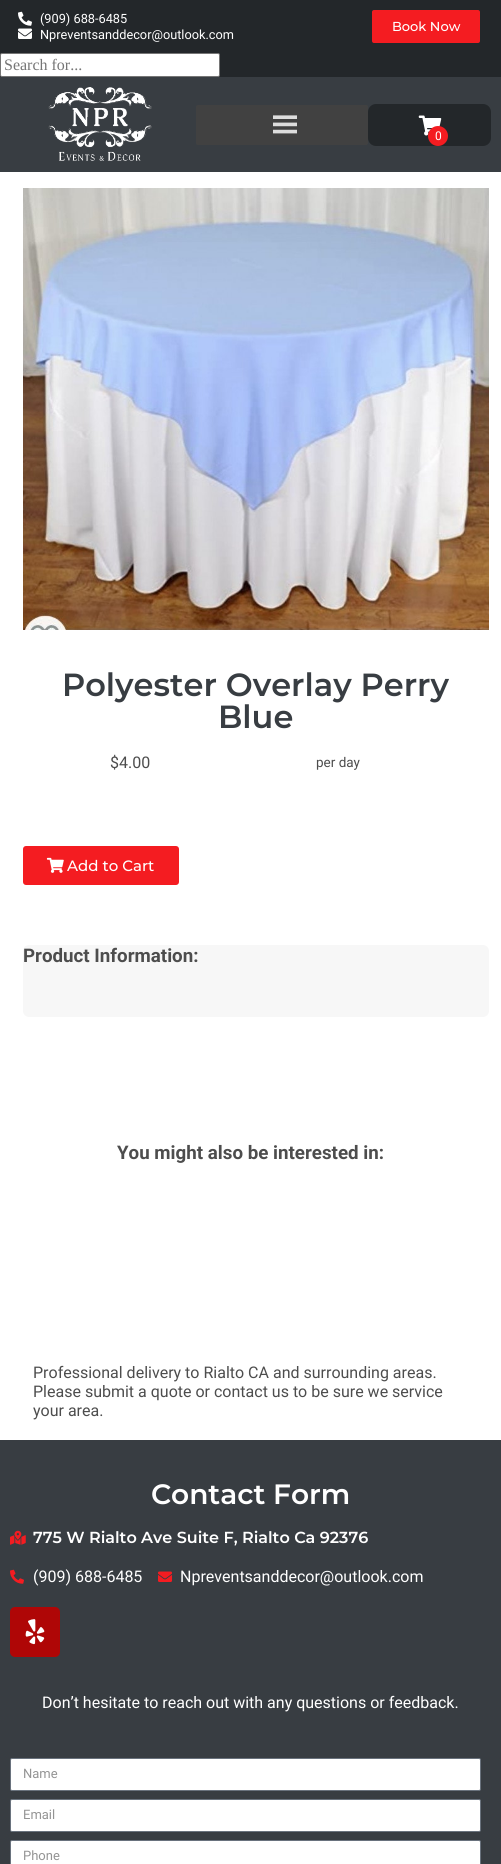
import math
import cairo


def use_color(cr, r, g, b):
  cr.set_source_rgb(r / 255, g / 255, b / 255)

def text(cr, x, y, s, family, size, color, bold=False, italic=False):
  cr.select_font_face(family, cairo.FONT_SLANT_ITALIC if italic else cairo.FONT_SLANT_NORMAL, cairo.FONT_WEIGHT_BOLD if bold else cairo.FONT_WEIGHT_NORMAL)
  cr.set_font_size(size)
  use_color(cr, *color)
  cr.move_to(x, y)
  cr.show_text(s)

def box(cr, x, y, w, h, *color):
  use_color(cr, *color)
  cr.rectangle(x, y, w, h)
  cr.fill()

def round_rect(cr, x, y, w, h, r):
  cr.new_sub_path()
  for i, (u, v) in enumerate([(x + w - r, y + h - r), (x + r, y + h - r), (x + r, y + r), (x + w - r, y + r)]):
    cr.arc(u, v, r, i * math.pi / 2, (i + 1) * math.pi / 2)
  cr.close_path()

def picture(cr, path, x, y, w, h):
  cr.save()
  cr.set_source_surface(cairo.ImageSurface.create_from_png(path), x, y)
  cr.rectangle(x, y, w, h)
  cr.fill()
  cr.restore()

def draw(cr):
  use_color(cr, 255, 255, 255)
  cr.paint()
  box(cr, 0, 77, 501, 95, 56, 61, 66)
  box(cr, 0, 0, 501, 77, 35, 39, 42)
  picture(cr, "img_01.png", 18, 11, 14, 15)
  picture(cr, "img_02.png", 18, 28, 14, 11)
  use_color(cr, 244, 28, 33)
  round_rect(cr, 372, 10, 108, 33, 2)
  cr.fill()
  use_color(cr, 255, 255, 255)
  round_rect(cr, 0.5, 53.5, 219, 23, 1.5)
  cr.fill_preserve()
  use_color(cr, 118, 118, 118)
  cr.set_line_width(1)
  cr.stroke()
  picture(cr, "img_03.png", 48, 87, 104, 74)
  use_color(cr, 65, 65, 65)
  round_rect(cr, 196, 105, 172, 40, 2)
  cr.fill()
  picture(cr, "img_04.png", 273, 115, 24, 19)
  use_color(cr, 35, 39, 42)
  round_rect(cr, 368, 104, 123, 42, 8)
  cr.fill()
  picture(cr, "img_05.png", 418, 115, 24, 21)
  use_color(cr, 244, 28, 33)
  cr.arc(438, 136, 10, 0, 2 * math.pi)
  cr.fill()
  picture(cr, "img_06.png", 23, 188, 466, 442)
  round_rect(cr, 23, 846, 156, 39, 3)
  cr.fill()
  picture(cr, "img_07.png", 46, 857, 18, 16)
  use_color(cr, 247, 247, 247)
  round_rect(cr, 23, 945, 466, 72, 6)
  cr.fill()
  box(cr, 0, 1440, 501, 424, 56, 61, 66)
  picture(cr, "img_08.png", 10, 1530, 16, 15)
  picture(cr, "img_09.png", 10, 1569, 14, 15)
  picture(cr, "img_10.png", 158, 1571, 14, 11)
  use_color(cr, 175, 6, 6)
  round_rect(cr, 10, 1607, 50, 50, 5)
  cr.fill()
  picture(cr, "img_11.png", 25, 1619, 20, 26)
  use_color(cr, 255, 255, 255)
  round_rect(cr, 10.5, 1758.5, 470, 32, 1.5)
  cr.fill_preserve()
  use_color(cr, 105, 114, 125)
  cr.stroke()
  use_color(cr, 255, 255, 255)
  round_rect(cr, 10.5, 1799.5, 470, 32, 1.5)
  cr.fill_preserve()
  use_color(cr, 105, 114, 125)
  cr.stroke()
  use_color(cr, 255, 255, 255)
  round_rect(cr, 10.5, 1840.5, 470, 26, 1.5)
  cr.fill_preserve()
  use_color(cr, 105, 114, 125)
  cr.stroke()
  text(cr, 40, 23, "(909) 688-6485", "Roboto", 12.75, (255, 255, 255))
  text(cr, 40, 39, "Npreventsanddecor@outlook.com", "Roboto", 12.75, (255, 255, 255))
  text(cr, 392, 31, "Book Now", "Montserrat Medium", 13, (255, 255, 255))
  text(cr, 4, 70, "Search for...", "Liberation Serif", 16, (117, 117, 117))
  text(cr, 435, 140, "0", "Roboto", 12, (255, 255, 255))
  text(cr, 62, 696, "Polyester Overlay Perry", "Montserrat SemiBold", 32, (56, 61, 66))
  text(cr, 218, 728, "Blue", "Montserrat SemiBold", 32, (56, 61, 66))
  text(cr, 110, 768, "$4.00", "Roboto", 16, (77, 77, 77))
  text(cr, 316, 767, "per day", "Roboto", 13.5, (77, 77, 77))
  text(cr, 67, 871, "Add to Cart", "Montserrat Medium", 15, (255, 255, 255))
  text(cr, 23, 962, "Product Information:", "Roboto", 18.75, (77, 77, 77), bold=True)
  text(cr, 117, 1159, "You might also be interested in:", "Roboto", 18.75, (77, 77, 77), bold=True)
  text(cr, 33, 1378, "Professional delivery to Rialto CA and surrounding areas.", "Roboto", 16, (77, 77, 77))
  text(cr, 33, 1397, "Please submit a quote or contact us to be sure we service", "Roboto", 16, (77, 77, 77))
  text(cr, 33, 1416, "your area.", "Roboto", 16, (77, 77, 77))
  text(cr, 151, 1504, "Contact Form", "Montserrat SemiBold", 28, (255, 255, 255))
  text(cr, 33, 1543, "775 W Rialto Ave Suite F, Rialto Ca 92376", "Montserrat SemiBold", 16, (255, 255, 255))
  text(cr, 33, 1582, "(909) 688-6485", "Roboto", 16, (255, 255, 255))
  text(cr, 180, 1582, "Npreventsanddecor@outlook.com", "Roboto", 16, (255, 255, 255))
  text(cr, 42, 1708, "Don’t hesitate to reach out with any questions or feedback.", "Roboto", 16, (255, 255, 255))
  text(cr, 23, 1778, "Name", "Roboto", 13, (148, 148, 148))
  text(cr, 23, 1819, "Email", "Roboto", 13, (148, 148, 148))
  text(cr, 23, 1860, "Phone", "Roboto", 13, (148, 148, 148))


surface = cairo.ImageSurface(cairo.FORMAT_RGB24, 501, 1864)
cr = cairo.Context(surface)
options = cairo.FontOptions()
options.set_hint_metrics(cairo.HINT_METRICS_OFF)
options.set_hint_style(cairo.HINT_STYLE_NONE)
cr.set_font_options(options)
cr.set_miter_limit(4)
draw(cr)
surface.write_to_png("out.png")
